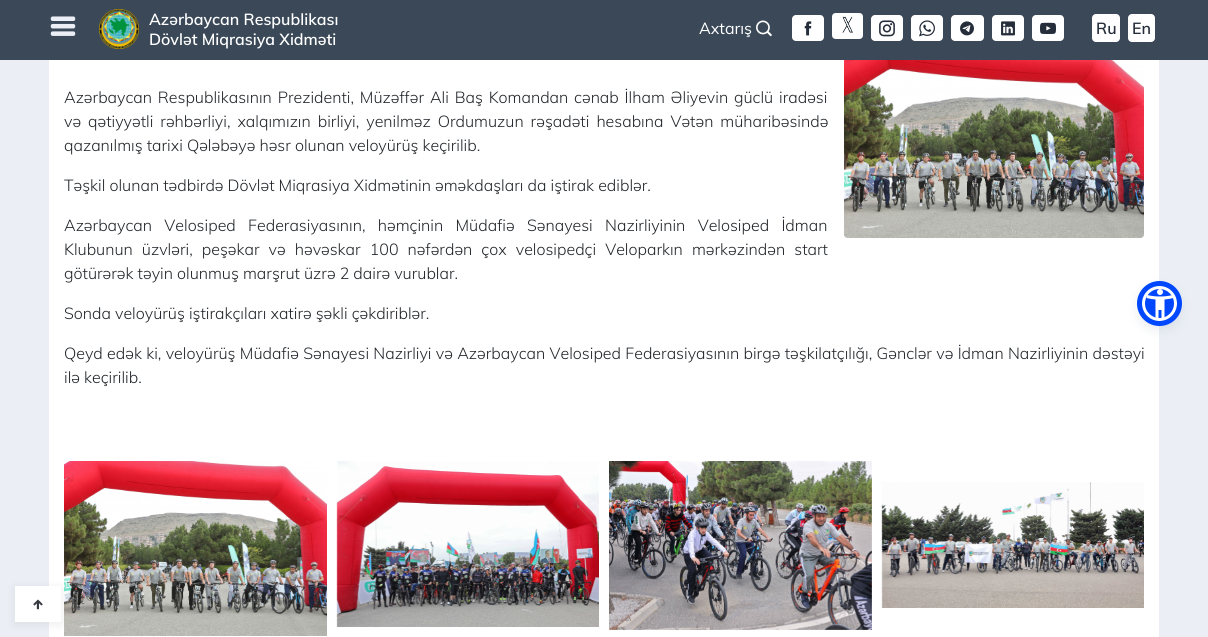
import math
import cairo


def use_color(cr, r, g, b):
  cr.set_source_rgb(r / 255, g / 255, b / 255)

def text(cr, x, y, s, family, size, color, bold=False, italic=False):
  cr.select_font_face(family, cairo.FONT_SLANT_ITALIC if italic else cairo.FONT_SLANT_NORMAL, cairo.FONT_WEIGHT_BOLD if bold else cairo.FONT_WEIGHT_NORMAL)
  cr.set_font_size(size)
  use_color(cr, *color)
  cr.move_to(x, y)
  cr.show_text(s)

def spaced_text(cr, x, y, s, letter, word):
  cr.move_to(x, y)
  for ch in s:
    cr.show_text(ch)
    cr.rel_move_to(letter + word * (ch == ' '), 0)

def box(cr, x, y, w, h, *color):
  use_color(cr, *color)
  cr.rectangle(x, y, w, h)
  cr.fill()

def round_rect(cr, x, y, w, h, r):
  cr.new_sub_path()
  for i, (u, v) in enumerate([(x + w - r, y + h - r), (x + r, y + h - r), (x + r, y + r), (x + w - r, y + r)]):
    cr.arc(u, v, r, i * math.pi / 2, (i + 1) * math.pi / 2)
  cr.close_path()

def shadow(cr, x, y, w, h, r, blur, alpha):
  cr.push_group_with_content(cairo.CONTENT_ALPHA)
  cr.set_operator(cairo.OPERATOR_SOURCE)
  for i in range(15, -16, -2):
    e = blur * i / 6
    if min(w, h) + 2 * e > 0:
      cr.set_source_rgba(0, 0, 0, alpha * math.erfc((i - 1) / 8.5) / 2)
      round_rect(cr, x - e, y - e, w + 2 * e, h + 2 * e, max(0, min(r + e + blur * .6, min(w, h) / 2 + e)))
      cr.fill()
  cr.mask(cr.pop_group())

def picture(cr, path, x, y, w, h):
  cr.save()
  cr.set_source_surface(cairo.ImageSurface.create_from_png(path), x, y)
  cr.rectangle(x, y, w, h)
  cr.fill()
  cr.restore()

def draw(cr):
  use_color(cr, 235, 239, 245)
  cr.paint()
  box(cr, 0, 0, 1208, 60, 58, 72, 88)
  picture(cr, "img_01.png", 50, 16, 26, 20)
  picture(cr, "img_02.png", 99, 9, 40, 40)
  picture(cr, "img_03.png", 756, 20, 16, 17)
  use_color(cr, 255, 255, 255)
  round_rect(cr, 792, 15, 32, 26, 4)
  cr.fill()
  picture(cr, "img_04.png", 804, 21, 8, 15)
  picture(cr, "img_05.png", 832, 13, 31, 26)
  round_rect(cr, 871, 15, 32, 26, 4)
  cr.fill()
  picture(cr, "img_06.png", 879, 20, 16, 17)
  round_rect(cr, 911, 15, 32, 26, 4)
  cr.fill()
  picture(cr, "img_07.png", 919, 20, 16, 17)
  round_rect(cr, 951, 15, 33, 26, 4)
  cr.fill()
  picture(cr, "img_08.png", 960, 21, 14, 15)
  round_rect(cr, 992, 15, 32, 26, 4)
  cr.fill()
  picture(cr, "img_09.png", 1001, 21, 14, 15)
  round_rect(cr, 1032, 15, 32, 26, 4)
  cr.fill()
  picture(cr, "img_10.png", 1040, 22, 16, 12)
  round_rect(cr, 1092, 14, 28, 28, 4)
  cr.fill()
  round_rect(cr, 1128, 14, 27, 28, 4)
  cr.fill()
  box(cr, 49, 60, 1110, 577, 255, 255, 255)
  picture(cr, "img_11.png", 844, 60, 300, 178)
  use_color(cr, 0, 0, 0)
  shadow(cr, 15, 588, 46, 36, 0, 5, 0.08)
  picture(cr, "img_12.png", 64, 461, 263, 175)
  picture(cr, "img_13.png", 336, 461, 263, 166)
  picture(cr, "img_14.png", 609, 461, 263, 169)
  picture(cr, "img_15.png", 881, 482, 263, 126)
  box(cr, 15, 586, 46, 36, 255, 255, 255)
  picture(cr, "img_16.png", 33, 599, 10, 11)
  use_color(cr, 93, 100, 148)
  shadow(cr, 1142, 288, 35, 35, 17.5, 2, 0.2)
  use_color(cr, 37, 44, 97)
  shadow(cr, 1142, 291, 35, 35, 17.5, 7.5, 0.15)
  use_color(cr, 0, 72, 255)
  cr.arc(1159.5, 303.5, 16, 0, 2 * math.pi)
  cr.fill_preserve()
  use_color(cr, 255, 255, 255)
  cr.set_line_width(3)
  cr.stroke()
  cr.arc(1159.5, 303.5, 20, 0, 2 * math.pi)
  use_color(cr, 0, 72, 255)
  cr.set_line_width(5)
  cr.stroke()
  picture(cr, "img_17.png", 1146, 289, 27, 29)
  text(cr, 149, 25, "Azərbaycan Respublikası", "Muli SemiBold", 16, (255, 255, 255))
  text(cr, 149, 45, "Dövlət Miqrasiya Xidməti", "Muli SemiBold", 16, (255, 255, 255))
  text(cr, 699, 34, "Axtarış", "Muli", 16, (255, 255, 255))
  text(cr, 1096, 34, "Ru", "Muli SemiBold", 16, (36, 45, 57))
  text(cr, 1132, 34, "En", "Muli SemiBold", 16, (36, 45, 57))
  cr.select_font_face("Muli Light")
  use_color(cr, 33, 37, 41)
  spaced_text(cr, 64, 103, "Azərbaycan Respublikasının Prezidenti, Müzəffər Ali Baş Komandan cənab İlham Əliyevin güclü iradəsi", 0, 1.75)
  spaced_text(cr, 64, 127, "və qətiyyətli rəhbərliyi, xalqımızın birliyi, yenilməz Ordumuzun rəşadəti hesabına Vətən müharibəsində", 0, 2.9)
  text(cr, 64, 151, "qazanılmış tarixi Qələbəyə həsr olunan veloyürüş keçirilib.", "Muli Light", 16, (33, 37, 41))
  text(cr, 64, 191, "Təşkil olunan tədbirdə Dövlət Miqrasiya Xidmətinin əməkdaşları da iştirak ediblər.", "Muli Light", 16, (33, 37, 41))
  spaced_text(cr, 64, 231, "Azərbaycan Velosiped Federasiyasının, həmçinin Müdafiə Sənayesi Nazirliyinin Velosiped İdman", 0, 8.25)
  spaced_text(cr, 64, 255, "Klubunun üzvləri, peşəkar və həvəskar 100 nəfərdən çox velosipedçi Veloparkın mərkəzindən start", 0, 5)
  text(cr, 64, 279, "götürərək təyin olunmuş marşrut üzrə 2 dairə vurublar.", "Muli Light", 16, (33, 37, 41))
  text(cr, 64, 319, "Sonda veloyürüş iştirakçıları xatirə şəkli çəkdiriblər.", "Muli Light", 16, (33, 37, 41))
  spaced_text(cr, 64, 359, "Qeyd edək ki, veloyürüş Müdafiə Sənayesi Nazirliyi və Azərbaycan Velosiped Federasiyasının birgə təşkilatçılığı, Gənclər və İdman Nazirliyinin dəstəyi", 0, 0.25)
  text(cr, 64, 383, "ilə keçirilib.", "Muli Light", 16, (33, 37, 41))


surface = cairo.ImageSurface(cairo.FORMAT_RGB24, 1208, 637)
cr = cairo.Context(surface)
options = cairo.FontOptions()
options.set_hint_metrics(cairo.HINT_METRICS_OFF)
options.set_hint_style(cairo.HINT_STYLE_NONE)
cr.set_font_options(options)
cr.set_miter_limit(4)
draw(cr)
surface.write_to_png("out.png")
